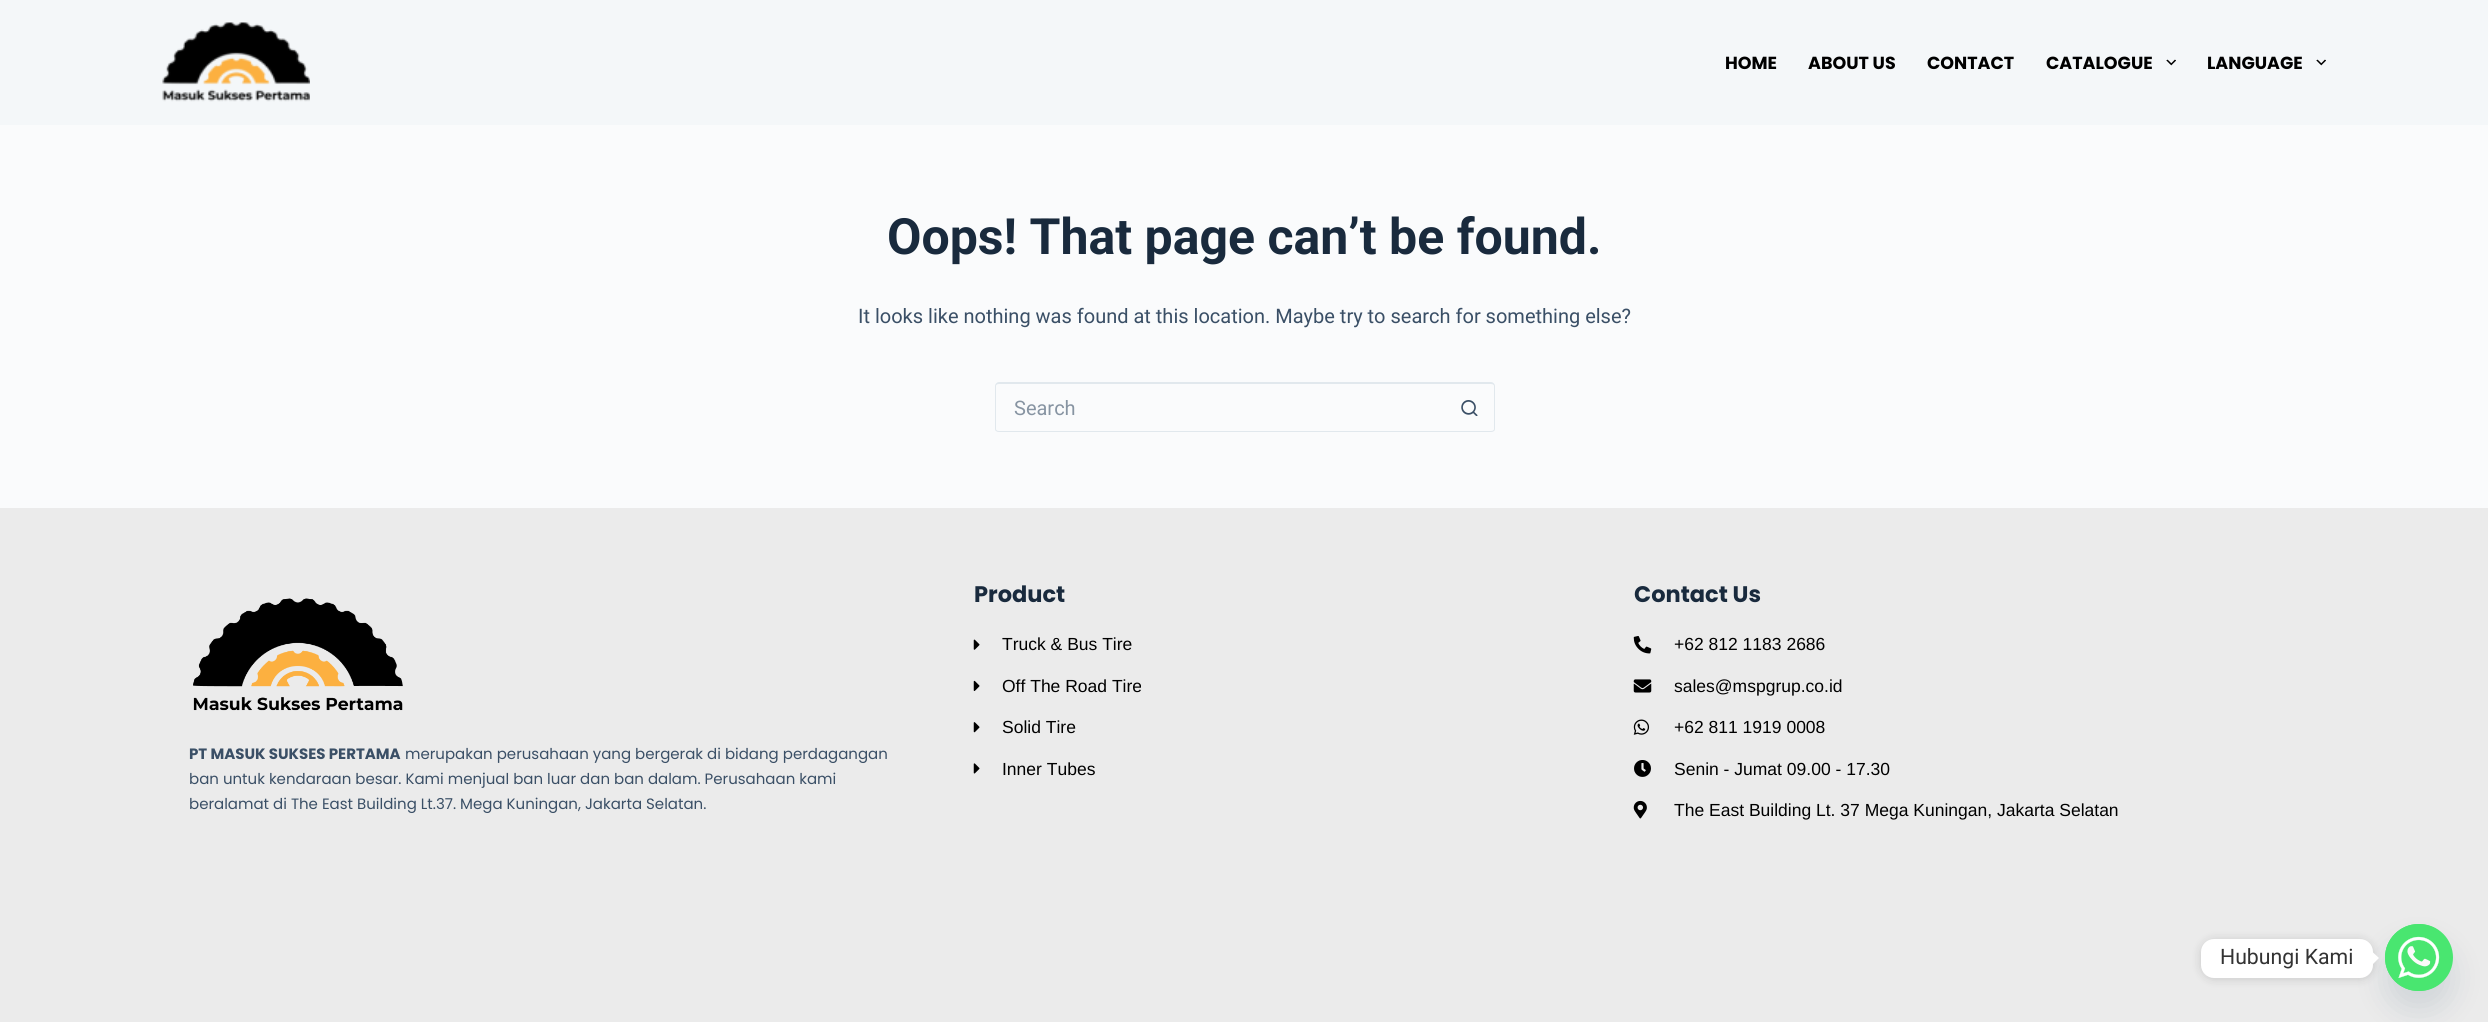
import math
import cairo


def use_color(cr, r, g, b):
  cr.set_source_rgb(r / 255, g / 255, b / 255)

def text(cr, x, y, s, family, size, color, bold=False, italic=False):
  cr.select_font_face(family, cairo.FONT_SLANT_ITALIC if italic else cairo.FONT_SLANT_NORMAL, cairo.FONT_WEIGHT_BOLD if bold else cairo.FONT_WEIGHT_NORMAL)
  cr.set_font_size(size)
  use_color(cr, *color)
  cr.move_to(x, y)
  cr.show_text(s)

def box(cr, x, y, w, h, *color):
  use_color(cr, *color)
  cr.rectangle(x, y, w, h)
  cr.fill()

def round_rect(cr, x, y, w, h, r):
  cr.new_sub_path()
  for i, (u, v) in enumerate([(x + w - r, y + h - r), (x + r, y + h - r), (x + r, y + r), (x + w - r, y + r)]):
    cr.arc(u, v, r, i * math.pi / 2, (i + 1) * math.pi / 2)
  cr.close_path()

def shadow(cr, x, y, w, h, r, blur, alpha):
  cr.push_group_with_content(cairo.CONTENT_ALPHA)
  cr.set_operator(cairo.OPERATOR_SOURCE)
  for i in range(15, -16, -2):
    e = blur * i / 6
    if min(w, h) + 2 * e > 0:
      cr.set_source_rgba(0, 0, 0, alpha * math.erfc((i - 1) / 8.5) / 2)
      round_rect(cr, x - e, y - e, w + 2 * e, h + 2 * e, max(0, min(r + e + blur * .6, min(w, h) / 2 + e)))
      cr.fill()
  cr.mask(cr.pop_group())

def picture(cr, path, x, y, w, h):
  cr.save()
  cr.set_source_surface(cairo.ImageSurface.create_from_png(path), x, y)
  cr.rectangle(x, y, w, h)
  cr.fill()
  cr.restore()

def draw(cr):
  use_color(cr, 250, 251, 252)
  cr.paint()
  box(cr, 0, 0, 2488, 125, 244, 247, 249)
  picture(cr, "img_01.png", 162, 22, 148, 80)
  picture(cr, "img_02.png", 2166, 59, 10, 7)
  picture(cr, "img_02.png", 2316, 59, 10, 7)
  use_color(cr, 225, 232, 237)
  cr.set_fill_rule(cairo.FILL_RULE_EVEN_ODD)
  cr.new_path()
  cr.move_to(999, 382)
  cr.line_to(1445, 382)
  cr.line_to(1445, 432)
  cr.line_to(999, 432)
  cr.curve_to(997, 432, 995, 431, 995, 429)
  cr.line_to(995, 386)
  cr.curve_to(995, 384, 997, 382, 999, 382)
  cr.close_path()
  cr.move_to(999, 384)
  cr.line_to(1445, 384)
  cr.line_to(1445, 431)
  cr.line_to(999, 431)
  cr.curve_to(997, 431, 996, 430, 996, 429)
  cr.line_to(996, 386)
  cr.curve_to(996, 385, 997, 384, 999, 384)
  cr.close_path()
  cr.fill()
  cr.new_path()
  cr.move_to(1445, 382)
  cr.line_to(1491, 382)
  cr.curve_to(1493, 382, 1495, 384, 1495, 386)
  cr.line_to(1495, 429)
  cr.curve_to(1495, 431, 1493, 432, 1491, 432)
  cr.line_to(1445, 432)
  cr.close_path()
  cr.move_to(1445, 384)
  cr.line_to(1491, 384)
  cr.curve_to(1493, 384, 1494, 385, 1494, 386)
  cr.line_to(1494, 429)
  cr.curve_to(1494, 430, 1493, 431, 1491, 431)
  cr.line_to(1445, 431)
  cr.close_path()
  cr.fill()
  picture(cr, "img_03.png", 1461, 400, 17, 16)
  box(cr, 0, 508, 2488, 514, 235, 235, 235)
  picture(cr, "img_04.png", 193, 598, 210, 113)
  picture(cr, "img_05.png", 973, 639, 7, 11)
  picture(cr, "img_06.png", 973, 680, 7, 11)
  picture(cr, "img_07.png", 973, 722, 7, 11)
  picture(cr, "img_08.png", 973, 763, 7, 11)
  picture(cr, "img_09.png", 1633, 636, 19, 18)
  picture(cr, "img_10.png", 1633, 679, 19, 14)
  picture(cr, "img_11.png", 1633, 719, 17, 16)
  picture(cr, "img_12.png", 1634, 760, 17, 17)
  picture(cr, "img_13.png", 1633, 800, 14, 19)
  use_color(cr, 73, 104, 126)
  shadow(cr, 2385, 944, 68, 67, 33.5, 15, 0.16)
  use_color(cr, 73, 230, 112)
  round_rect(cr, 2385, 924, 68, 67, 33.5)
  cr.fill()
  picture(cr, "img_14.png", 2385, 924, 55, 67)
  use_color(cr, 0, 0, 0)
  shadow(cr, 2201, 940, 172, 39, 13, 5, 0.15)
  use_color(cr, 255, 255, 255)
  round_rect(cr, 2201, 939, 172, 39, 13)
  cr.fill()
  cr.set_fill_rule(cairo.FILL_RULE_WINDING)
  cr.new_path()
  cr.move_to(2372.5, 964.5)
  cr.line_to(2372.5, 952)
  cr.line_to(2379, 958)
  cr.close_path()
  cr.fill()
  text(cr, 1725, 69, "HOME", "Poppins", 17.5, (0, 0, 0), bold=True)
  text(cr, 1808, 69, "ABOUT US", "Poppins", 17.5, (0, 0, 0), bold=True)
  text(cr, 1927, 69, "CONTACT", "Poppins", 17.5, (0, 0, 0), bold=True)
  text(cr, 2046, 69, "CATALOGUE", "Poppins", 17.5, (0, 0, 0), bold=True)
  text(cr, 2207, 69, "LANGUAGE", "Poppins", 17.5, (0, 0, 0), bold=True)
  text(cr, 887, 254, "Oops! That page can’t be found.", "Roboto", 50, (25, 42, 61), bold=True)
  text(cr, 858, 323, "It looks like nothing was found at this location. Maybe try to search for something else?", "Roboto", 20, (58, 79, 102))
  text(cr, 1014, 415, "Search", "Roboto", 20, (135, 148, 162))
  text(cr, 189, 759, "PT MASUK SUKSES PERTAMA", "Poppins", 15, (58, 79, 102), bold=True)
  text(cr, 405, 759, "merupakan perusahaan yang bergerak di bidang perdagangan", "Poppins", 15, (58, 79, 102))
  text(cr, 189, 784, "ban untuk kendaraan besar. Kami menjual ban luar dan ban dalam. Perusahaan kami", "Poppins", 15, (58, 79, 102))
  text(cr, 189, 809, "beralamat di The East Building Lt.37. Mega Kuningan, Jakarta Selatan.", "Poppins", 15, (58, 79, 102))
  text(cr, 974, 602, "Product", "Poppins", 22.5, (25, 42, 61), bold=True)
  text(cr, 1002, 650, "Truck & Bus Tire", "Liberation Sans", 17.5, (0, 0, 0))
  text(cr, 1002, 692, "Off The Road Tire", "Liberation Sans", 17.5, (0, 0, 0))
  text(cr, 1002, 733, "Solid Tire", "Liberation Sans", 17.5, (0, 0, 0))
  text(cr, 1002, 775, "Inner Tubes", "Liberation Sans", 17.5, (0, 0, 0))
  text(cr, 1634, 602, "Contact Us", "Poppins", 22.5, (25, 42, 61), bold=True)
  text(cr, 1674, 650, "+62 812 1183 2686", "Liberation Sans", 17.5, (0, 0, 0))
  text(cr, 1674, 692, "sales@mspgrup.co.id", "Liberation Sans", 17.5, (0, 0, 0))
  text(cr, 1674, 733, "+62 811 1919 0008", "Liberation Sans", 17.5, (0, 0, 0))
  text(cr, 1674, 775, "Senin - Jumat 09.00 - 17.30", "Liberation Sans", 17.5, (0, 0, 0))
  text(cr, 1674, 816, "The East Building Lt. 37 Mega Kuningan, Jakarta Selatan", "Liberation Sans", 17.5, (0, 0, 0))
  text(cr, 2220, 964, "Hubungi Kami", "Roboto", 21.25, (51, 51, 51))


surface = cairo.ImageSurface(cairo.FORMAT_RGB24, 2488, 1022)
cr = cairo.Context(surface)
options = cairo.FontOptions()
options.set_hint_metrics(cairo.HINT_METRICS_OFF)
options.set_hint_style(cairo.HINT_STYLE_NONE)
cr.set_font_options(options)
cr.set_miter_limit(4)
draw(cr)
surface.write_to_png("out.png")
